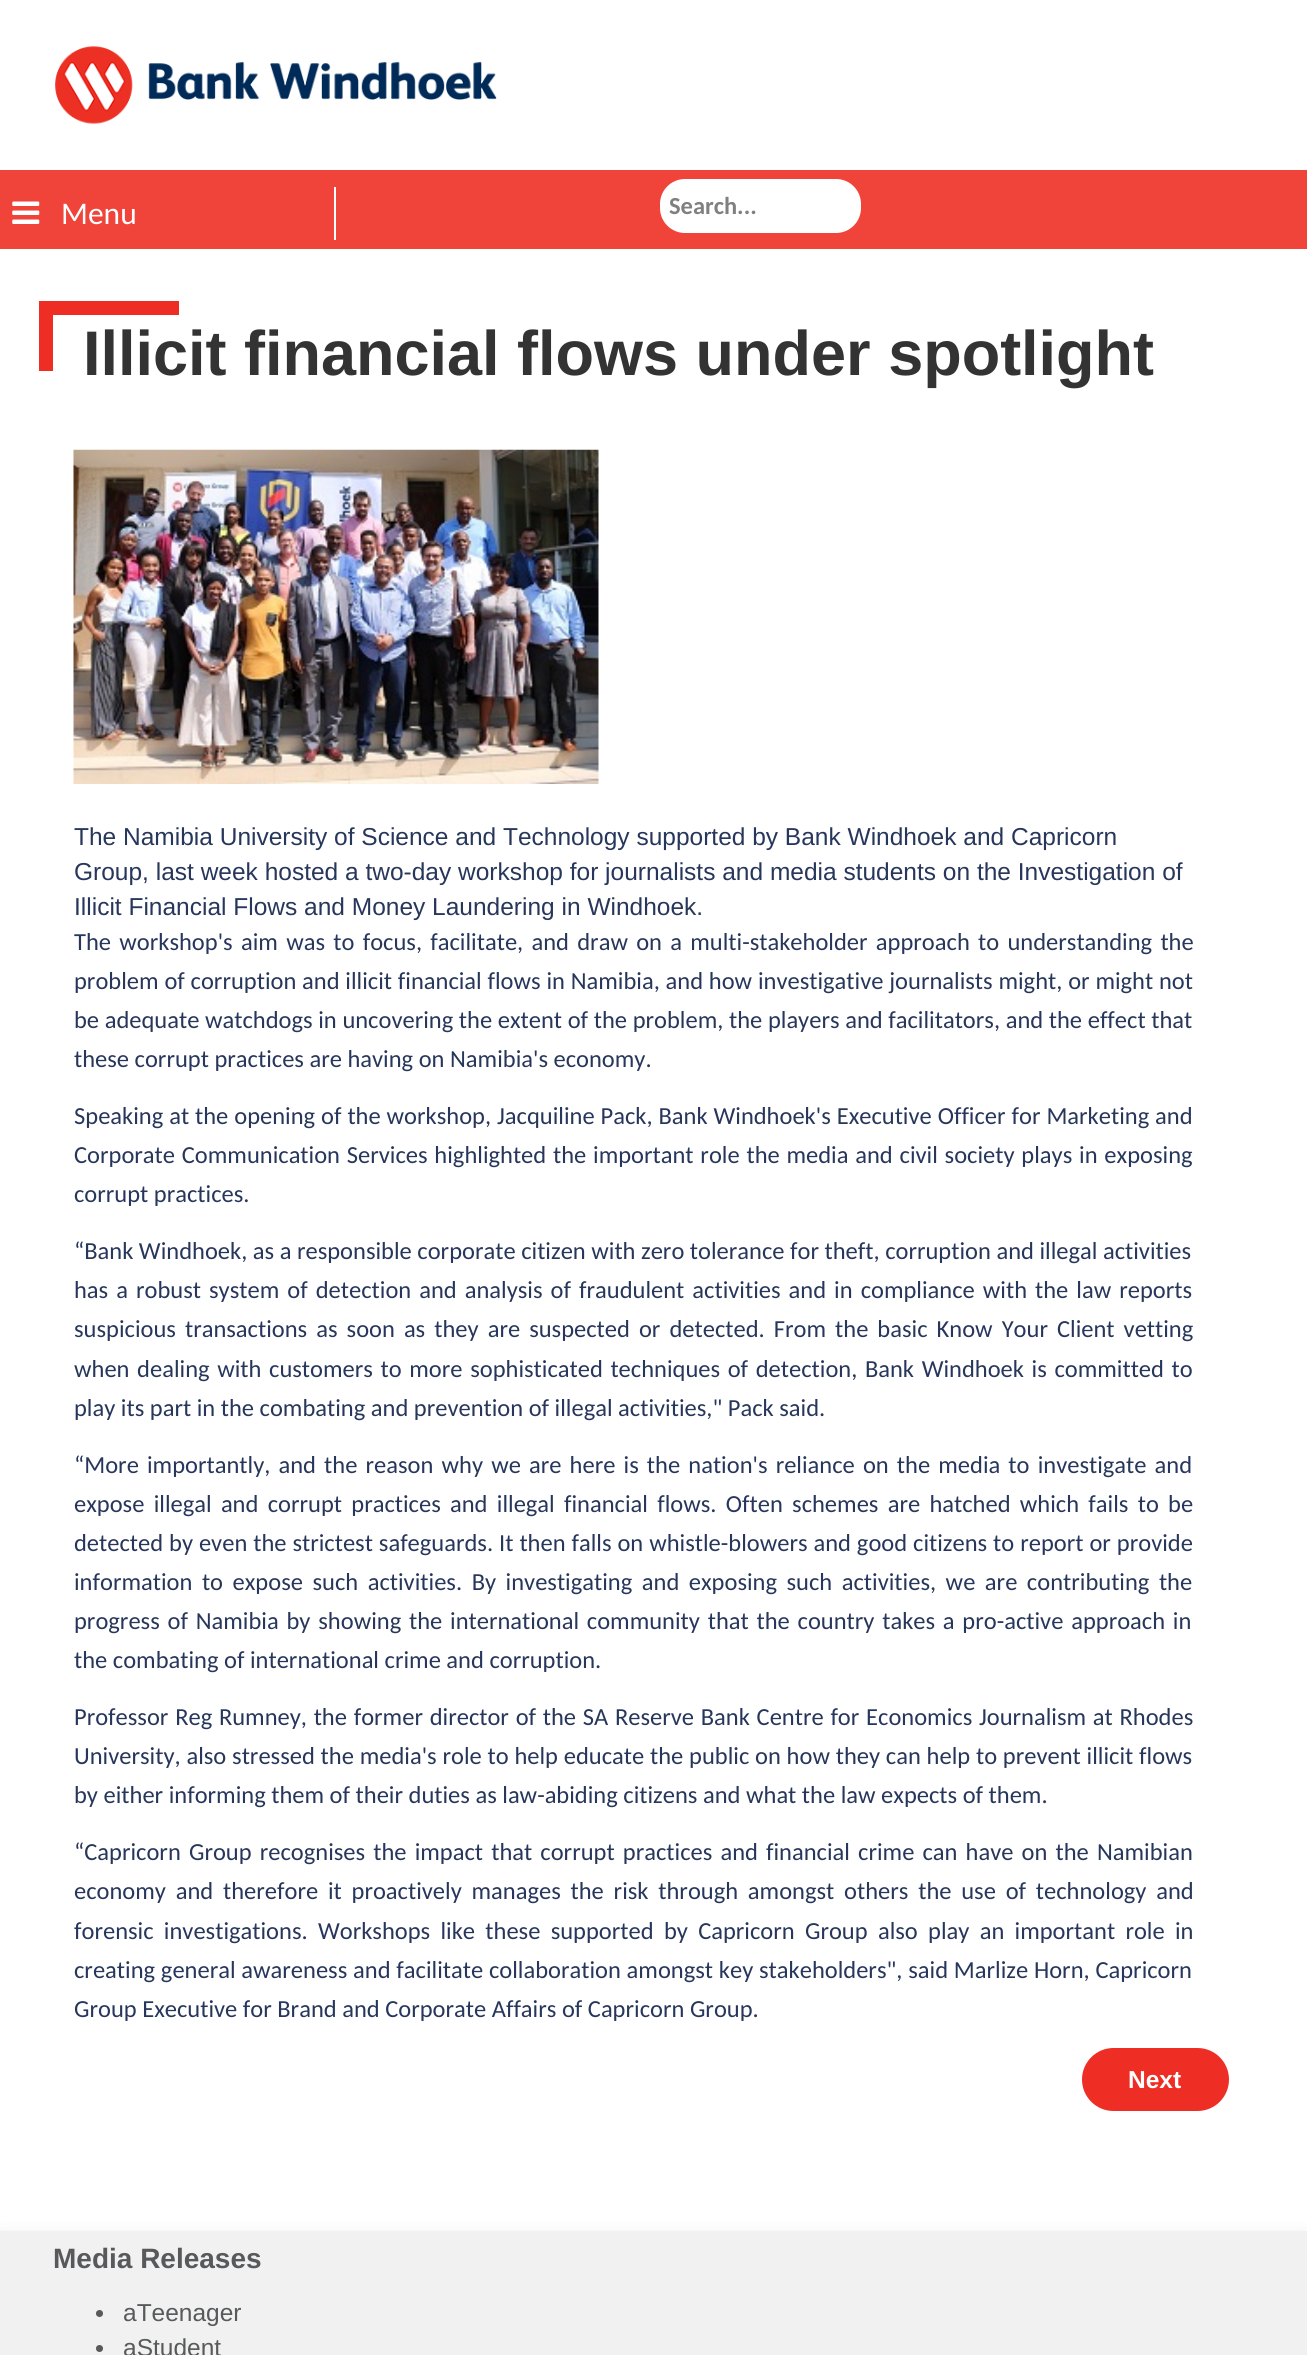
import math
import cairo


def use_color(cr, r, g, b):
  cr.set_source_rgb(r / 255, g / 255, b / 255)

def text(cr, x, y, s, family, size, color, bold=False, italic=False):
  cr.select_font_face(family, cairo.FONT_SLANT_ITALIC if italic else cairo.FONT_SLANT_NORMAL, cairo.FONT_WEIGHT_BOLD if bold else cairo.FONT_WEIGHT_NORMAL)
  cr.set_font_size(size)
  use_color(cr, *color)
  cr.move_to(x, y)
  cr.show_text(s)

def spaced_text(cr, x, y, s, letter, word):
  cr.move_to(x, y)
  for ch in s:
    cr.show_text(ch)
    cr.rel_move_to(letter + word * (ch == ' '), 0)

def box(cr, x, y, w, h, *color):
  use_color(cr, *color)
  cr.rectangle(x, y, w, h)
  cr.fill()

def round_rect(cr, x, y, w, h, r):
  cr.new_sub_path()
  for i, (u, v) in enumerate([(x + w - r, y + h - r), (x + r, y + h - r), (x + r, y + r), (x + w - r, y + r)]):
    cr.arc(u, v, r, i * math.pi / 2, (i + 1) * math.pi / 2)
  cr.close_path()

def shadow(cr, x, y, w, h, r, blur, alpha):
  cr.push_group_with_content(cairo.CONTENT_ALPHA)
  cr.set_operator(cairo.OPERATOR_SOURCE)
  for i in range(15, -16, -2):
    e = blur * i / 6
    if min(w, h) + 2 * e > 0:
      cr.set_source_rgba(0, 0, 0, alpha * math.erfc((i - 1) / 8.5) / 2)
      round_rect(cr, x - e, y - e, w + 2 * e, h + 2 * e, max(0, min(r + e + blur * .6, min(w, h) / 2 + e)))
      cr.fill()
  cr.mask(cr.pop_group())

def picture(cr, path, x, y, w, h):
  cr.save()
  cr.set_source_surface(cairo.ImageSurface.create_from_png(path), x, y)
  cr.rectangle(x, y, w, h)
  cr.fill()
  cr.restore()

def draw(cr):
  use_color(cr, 255, 255, 255)
  cr.paint()
  picture(cr, "img_01.png", 55, 46, 442, 78)
  box(cr, 0, 170, 1307, 79, 240, 67, 58)
  box(cr, 334, 187, 2, 53, 255, 255, 255)
  picture(cr, "img_02.png", 12, 201, 28, 23)
  round_rect(cr, 660, 179, 201, 54, 25)
  cr.fill()
  box(cr, 53, 301, 126, 14, 238, 46, 36)
  box(cr, 39, 301, 14, 70, 238, 46, 36)
  picture(cr, "img_03.png", 73, 449, 526, 335)
  round_rect(cr, 1082, 2048, 147, 63, 31.5)
  cr.fill()
  use_color(cr, 0, 0, 0)
  shadow(cr, 0, 2240, 1307, 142, 0, 9, 0.19)
  box(cr, 0, 2231, 1307, 124, 240, 241, 240)
  use_color(cr, 88, 89, 91)
  cr.arc(99.5, 2313.5, 3.5, 0, 2 * math.pi)
  cr.fill()
  cr.arc(99.5, 2348.5, 3.5, 0, 2 * math.pi)
  cr.fill()
  text(cr, 61, 224, "Menu", "Carlito", 31.5, (255, 255, 255))
  text(cr, 669, 214, "Search...", "Carlito", 24.5, (128, 128, 128), bold=True)
  text(cr, 83, 375, "Illicit financial flows under spotlight", "Liberation Sans", 63, (51, 51, 51), bold=True)
  text(cr, 74, 845, "The Namibia University of Science and Technology supported by Bank Windhoek and Capricorn", "Liberation Sans", 24.5, (39, 54, 91))
  text(cr, 74, 880, "Group, last week hosted a two-day workshop for journalists and media students on the Investigation of", "Liberation Sans", 24.5, (39, 54, 91))
  text(cr, 74, 915, "Illicit Financial Flows and Money Laundering in Windhoek.", "Liberation Sans", 24.5, (39, 54, 91))
  cr.select_font_face("Carlito")
  spaced_text(cr, 74, 950, "The workshop's aim was to focus, facilitate, and draw on a multi-stakeholder approach to understanding the", 0, 2.75)
  spaced_text(cr, 74, 989, "problem of corruption and illicit financial flows in Namibia, and how investigative journalists might, or might not", 0, 0.25)
  spaced_text(cr, 74, 1028, "be adequate watchdogs in uncovering the extent of the problem, the players and facilitators, and the effect that", 0, 0.1)
  text(cr, 74, 1067, "these corrupt practices are having on Namibia's economy.", "Carlito", 24.5, (39, 54, 91))
  spaced_text(cr, 74, 1124, "Speaking at the opening of the workshop, Jacquiline Pack, Bank Windhoek's Executive Officer for Marketing and", 0, 0.4)
  spaced_text(cr, 74, 1163, "Corporate Communication Services highlighted the important role the media and civil society plays in exposing", 0, 1.25)
  text(cr, 74, 1202, "corrupt practices.", "Carlito", 24.5, (39, 54, 91))
  text(cr, 74, 1259, "“Bank Windhoek, as a responsible corporate citizen with zero tolerance for theft, corruption and illegal activities", "Carlito", 24.5, (39, 54, 91))
  spaced_text(cr, 74, 1298, "has a robust system of detection and analysis of fraudulent activities and in compliance with the law reports", 0, 2.5)
  spaced_text(cr, 74, 1337, "suspicious transactions as soon as they are suspected or detected. From the basic Know Your Client vetting", 0, 3.5)
  spaced_text(cr, 74, 1377, "when dealing with customers to more sophisticated techniques of detection, Bank Windhoek is committed to", 0, 2.1)
  text(cr, 74, 1416, "play its part in the combating and prevention of illegal activities,\" Pack said.", "Carlito", 24.5, (39, 54, 91))
  spaced_text(cr, 74, 1473, "“More importantly, and the reason why we are here is the nation's reliance on the media to investigate and", 0, 2.6)
  spaced_text(cr, 74, 1512, "expose illegal and corrupt practices and illegal financial flows. Often schemes are hatched which fails to be", 0, 3.75)
  spaced_text(cr, 74, 1551, "detected by even the strictest safeguards. It then falls on whistle-blowers and good citizens to report or provide", 0, 0.4)
  spaced_text(cr, 74, 1590, "information to expose such activities. By investigating and exposing such activities, we are contributing the", 0, 4)
  spaced_text(cr, 74, 1629, "progress of Namibia by showing the international community that the country takes a pro-active approach in", 0, 2.25)
  text(cr, 74, 1668, "the combating of international crime and corruption.", "Carlito", 24.5, (39, 54, 91))
  spaced_text(cr, 74, 1725, "Professor Reg Rumney, the former director of the SA Reserve Bank Centre for Economics Journalism at Rhodes", 0, 1.2)
  spaced_text(cr, 74, 1764, "University, also stressed the media's role to help educate the public on how they can help to prevent illicit flows", 0, 0.25)
  text(cr, 74, 1803, "by either informing them of their duties as law-abiding citizens and what the law expects of them.", "Carlito", 24.5, (39, 54, 91))
  spaced_text(cr, 74, 1860, "“Capricorn Group recognises the impact that corrupt practices and financial crime can have on the Namibian", 0, 2.6)
  spaced_text(cr, 74, 1899, "economy and therefore it proactively manages the risk through amongst others the use of technology and", 0, 4.25)
  spaced_text(cr, 74, 1939, "forensic investigations. Workshops like these supported by Capricorn Group also play an important role in", 0, 4.75)
  spaced_text(cr, 74, 1978, "creating general awareness and facilitate collaboration amongst key stakeholders\", said Marlize Horn, Capricorn", 0, 0.25)
  text(cr, 74, 2017, "Group Executive for Brand and Corporate Affairs of Capricorn Group.", "Carlito", 24.5, (39, 54, 91))
  text(cr, 1128, 2088, "Next", "Liberation Sans", 24.5, (255, 255, 255), bold=True)
  text(cr, 53, 2268, "Media Releases", "Liberation Sans", 28, (88, 89, 91), bold=True)
  text(cr, 123, 2321, "aTeenager", "Liberation Sans", 24.5, (88, 89, 91))
  text(cr, 123, 2356, "aStudent", "Liberation Sans", 24.5, (88, 89, 91))


surface = cairo.ImageSurface(cairo.FORMAT_RGB24, 1307, 2355)
cr = cairo.Context(surface)
options = cairo.FontOptions()
options.set_hint_metrics(cairo.HINT_METRICS_OFF)
options.set_hint_style(cairo.HINT_STYLE_NONE)
cr.set_font_options(options)
cr.set_miter_limit(4)
draw(cr)
surface.write_to_png("out.png")
